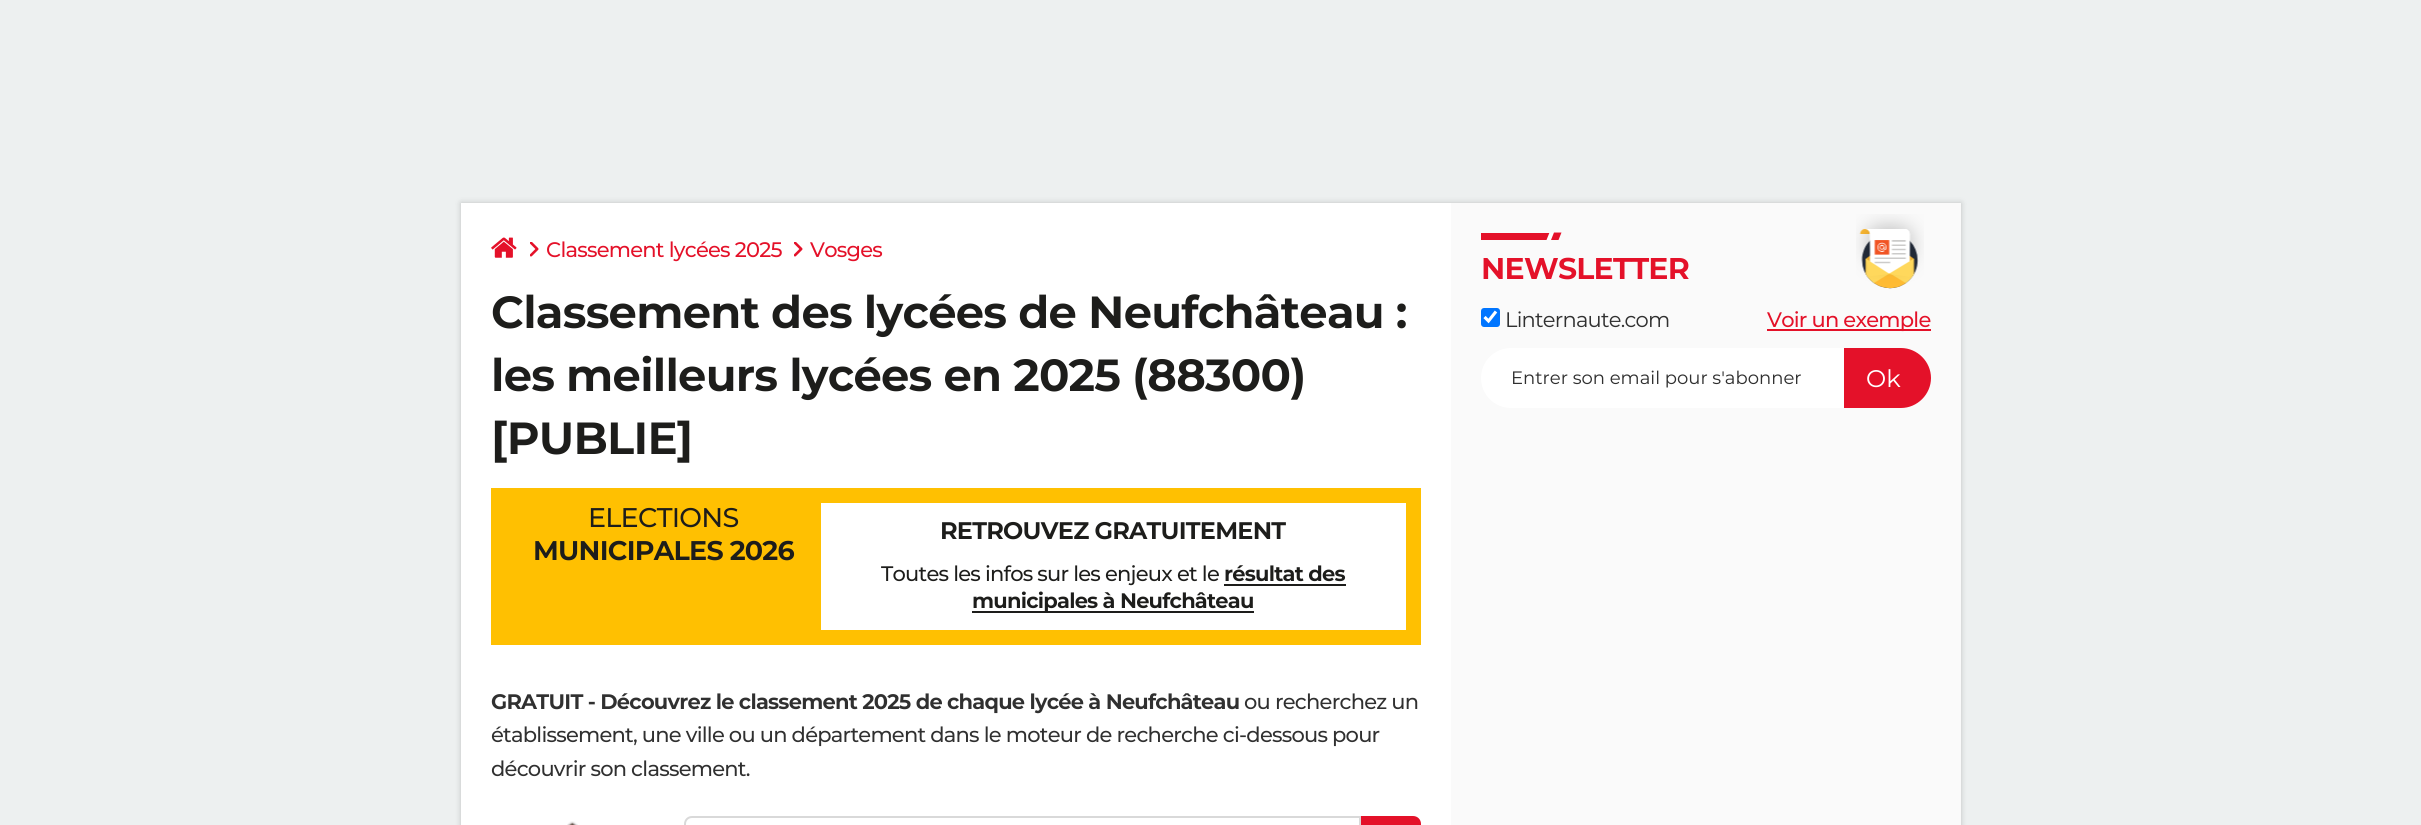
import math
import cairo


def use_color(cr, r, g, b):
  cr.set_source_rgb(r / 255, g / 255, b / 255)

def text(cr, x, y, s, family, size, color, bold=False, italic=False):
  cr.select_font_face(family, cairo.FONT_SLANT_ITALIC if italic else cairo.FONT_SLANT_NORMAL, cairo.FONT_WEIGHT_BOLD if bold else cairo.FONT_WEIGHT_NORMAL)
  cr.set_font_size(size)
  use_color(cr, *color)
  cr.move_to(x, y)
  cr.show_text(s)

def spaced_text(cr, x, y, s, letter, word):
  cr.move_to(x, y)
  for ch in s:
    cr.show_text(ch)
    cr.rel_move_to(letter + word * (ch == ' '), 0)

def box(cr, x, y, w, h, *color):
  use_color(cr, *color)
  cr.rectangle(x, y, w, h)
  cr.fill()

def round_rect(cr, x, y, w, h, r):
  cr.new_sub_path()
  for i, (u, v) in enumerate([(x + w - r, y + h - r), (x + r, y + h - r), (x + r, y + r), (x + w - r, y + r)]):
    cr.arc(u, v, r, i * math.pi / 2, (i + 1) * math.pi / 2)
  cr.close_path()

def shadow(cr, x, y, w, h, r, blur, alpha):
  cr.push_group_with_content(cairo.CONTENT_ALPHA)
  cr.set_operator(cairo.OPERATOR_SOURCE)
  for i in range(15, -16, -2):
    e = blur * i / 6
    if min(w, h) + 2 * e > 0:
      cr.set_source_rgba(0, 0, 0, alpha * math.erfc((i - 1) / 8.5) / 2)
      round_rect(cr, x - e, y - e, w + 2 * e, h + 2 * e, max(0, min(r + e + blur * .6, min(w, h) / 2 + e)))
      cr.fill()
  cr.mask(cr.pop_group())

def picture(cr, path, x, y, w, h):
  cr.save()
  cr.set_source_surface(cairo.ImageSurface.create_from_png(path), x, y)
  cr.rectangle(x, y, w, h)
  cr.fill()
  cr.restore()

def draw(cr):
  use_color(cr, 237, 240, 240)
  cr.paint()
  use_color(cr, 0, 0, 0)
  shadow(cr, 461, 203, 1500, 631, 0, 3, 0.2)
  box(cr, 1451, 203, 510, 622, 250, 250, 250)
  box(cr, 461, 203, 990, 622, 255, 255, 255)
  picture(cr, "img_01.png", 491, 237, 26, 21)
  picture(cr, "img_02.png", 530, 242, 9, 15)
  picture(cr, "img_02.png", 794, 242, 9, 15)
  box(cr, 491, 488, 930, 157, 255, 192, 1)
  box(cr, 821, 503, 585, 127, 255, 255, 255)
  box(cr, 1224, 584, 122, 2, 29, 29, 27)
  box(cr, 972, 611, 282, 2, 29, 29, 27)
  picture(cr, "img_03.png", 567, 821, 11, 4)
  cr.new_path()
  cr.move_to(692, 817)
  cr.line_to(1360, 817)
  cr.line_to(1360, 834)
  cr.line_to(692, 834)
  cr.curve_to(688, 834, 685, 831, 685, 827)
  cr.line_to(685, 824)
  cr.curve_to(685, 820, 688, 817, 692, 817)
  cr.close_path()
  use_color(cr, 217, 217, 217)
  cr.stroke()
  use_color(cr, 228, 17, 41)
  cr.new_path()
  cr.move_to(1362, 817)
  cr.line_to(1413, 817)
  cr.curve_to(1417, 817, 1420, 820, 1420, 824)
  cr.line_to(1420, 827)
  cr.curve_to(1420, 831, 1417, 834, 1413, 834)
  cr.line_to(1362, 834)
  cr.close_path()
  cr.fill_preserve()
  cr.stroke()
  box(cr, 1481, 233, 75, 7, 228, 17, 41)
  use_color(cr, 255, 255, 255)
  cr.new_path()
  cr.move_to(1549.5, 232.5)
  cr.line_to(1561.5, 232.5)
  cr.line_to(1558.5, 240)
  cr.line_to(1546.5, 240)
  cr.close_path()
  cr.fill()
  use_color(cr, 228, 17, 41)
  cr.new_path()
  cr.move_to(1554, 232.5)
  cr.line_to(1561.5, 232.5)
  cr.line_to(1558.5, 240)
  cr.line_to(1551, 240)
  cr.close_path()
  cr.fill()
  picture(cr, "img_04.png", 1856, 214, 68, 75)
  use_color(cr, 0, 117, 255)
  round_rect(cr, 1481, 308, 19, 19, 3)
  cr.fill()
  cr.new_path()
  cr.move_to(1484.5, 317)
  cr.line_to(1488.5, 321)
  cr.line_to(1496, 311.5)
  use_color(cr, 255, 255, 255)
  cr.set_line_width(3.1)
  cr.stroke()
  box(cr, 1767, 329, 164, 2, 228, 17, 41)
  use_color(cr, 255, 255, 255)
  round_rect(cr, 1481, 348, 450, 60, 30)
  cr.fill()
  use_color(cr, 228, 17, 41)
  cr.new_path()
  cr.move_to(1845.5, 349.5)
  cr.line_to(1901, 349.5)
  cr.curve_to(1916.5, 349.5, 1929.5, 362.5, 1929.5, 378)
  cr.curve_to(1929.5, 393.5, 1916.5, 406.5, 1901, 406.5)
  cr.line_to(1845.5, 406.5)
  cr.close_path()
  cr.fill_preserve()
  cr.set_line_width(3)
  cr.stroke()
  cr.select_font_face("Montserrat Medium")
  cr.set_font_size(21)
  spaced_text(cr, 546, 257, "Classement lycées 2025", -0.75, 0)
  spaced_text(cr, 810, 257, "Vosges", -0.75, 0)
  cr.select_font_face("Montserrat", cairo.FONT_SLANT_NORMAL, cairo.FONT_WEIGHT_BOLD)
  cr.set_font_size(45)
  use_color(cr, 29, 29, 27)
  spaced_text(cr, 491, 328, "Classement des lycées de Neufchâteau :", -0.75, 0)
  spaced_text(cr, 491, 391, "les meilleurs lycées en 2025 (88300)", -0.75, 0)
  spaced_text(cr, 491, 454, "[PUBLIE]", -0.75, 0)
  cr.select_font_face("Montserrat Medium")
  cr.set_font_size(27)
  spaced_text(cr, 588, 527, "ELECTIONS", -0.75, 0)
  cr.select_font_face("Montserrat", cairo.FONT_SLANT_NORMAL, cairo.FONT_WEIGHT_BOLD)
  spaced_text(cr, 533, 560, "MUNICIPALES 2026", -0.75, 0)
  cr.set_font_size(24)
  spaced_text(cr, 940, 539, "RETROUVEZ GRATUITEMENT", -0.75, 0)
  cr.select_font_face("Montserrat Medium")
  cr.set_font_size(21)
  spaced_text(cr, 881, 581, "Toutes les infos sur les enjeux et le", -0.75, 0)
  cr.select_font_face("Montserrat", cairo.FONT_SLANT_NORMAL, cairo.FONT_WEIGHT_BOLD)
  spaced_text(cr, 1224, 581, "résultat des", -0.75, 0)
  spaced_text(cr, 972, 608, "municipales à Neufchâteau", -0.75, 0)
  use_color(cr, 48, 48, 48)
  spaced_text(cr, 491, 709, "GRATUIT - Découvrez le classement 2025 de chaque lycée à Neufchâteau", -0.75, 0)
  cr.select_font_face("Montserrat Medium")
  spaced_text(cr, 1244, 709, "ou recherchez un", -0.75, 0)
  spaced_text(cr, 491, 742, "établissement, une ville ou un département dans le moteur de recherche ci-dessous pour", -0.75, 0)
  spaced_text(cr, 491, 776, "découvrir son classement.", -0.75, 0)
  cr.select_font_face("Montserrat", cairo.FONT_SLANT_NORMAL, cairo.FONT_WEIGHT_BOLD)
  cr.set_font_size(30)
  use_color(cr, 228, 17, 41)
  spaced_text(cr, 1481, 279, "NEWSLETTER", -0.75, 0)
  cr.select_font_face("Montserrat")
  cr.set_font_size(21)
  use_color(cr, 48, 48, 48)
  spaced_text(cr, 1505, 327, "Linternaute.com", -0.75, 0)
  cr.select_font_face("Montserrat Medium")
  use_color(cr, 228, 17, 41)
  spaced_text(cr, 1767, 327, "Voir un exemple", -0.75, 0)
  text(cr, 1511, 384, "Entrer son email pour s'abonner", "Montserrat", 18, (48, 48, 48))
  text(cr, 1866, 387, "Ok", "Montserrat", 24, (255, 255, 255))


surface = cairo.ImageSurface(cairo.FORMAT_RGB24, 2421, 825)
cr = cairo.Context(surface)
options = cairo.FontOptions()
options.set_hint_metrics(cairo.HINT_METRICS_OFF)
options.set_hint_style(cairo.HINT_STYLE_NONE)
cr.set_font_options(options)
cr.set_miter_limit(4)
draw(cr)
surface.write_to_png("out.png")
